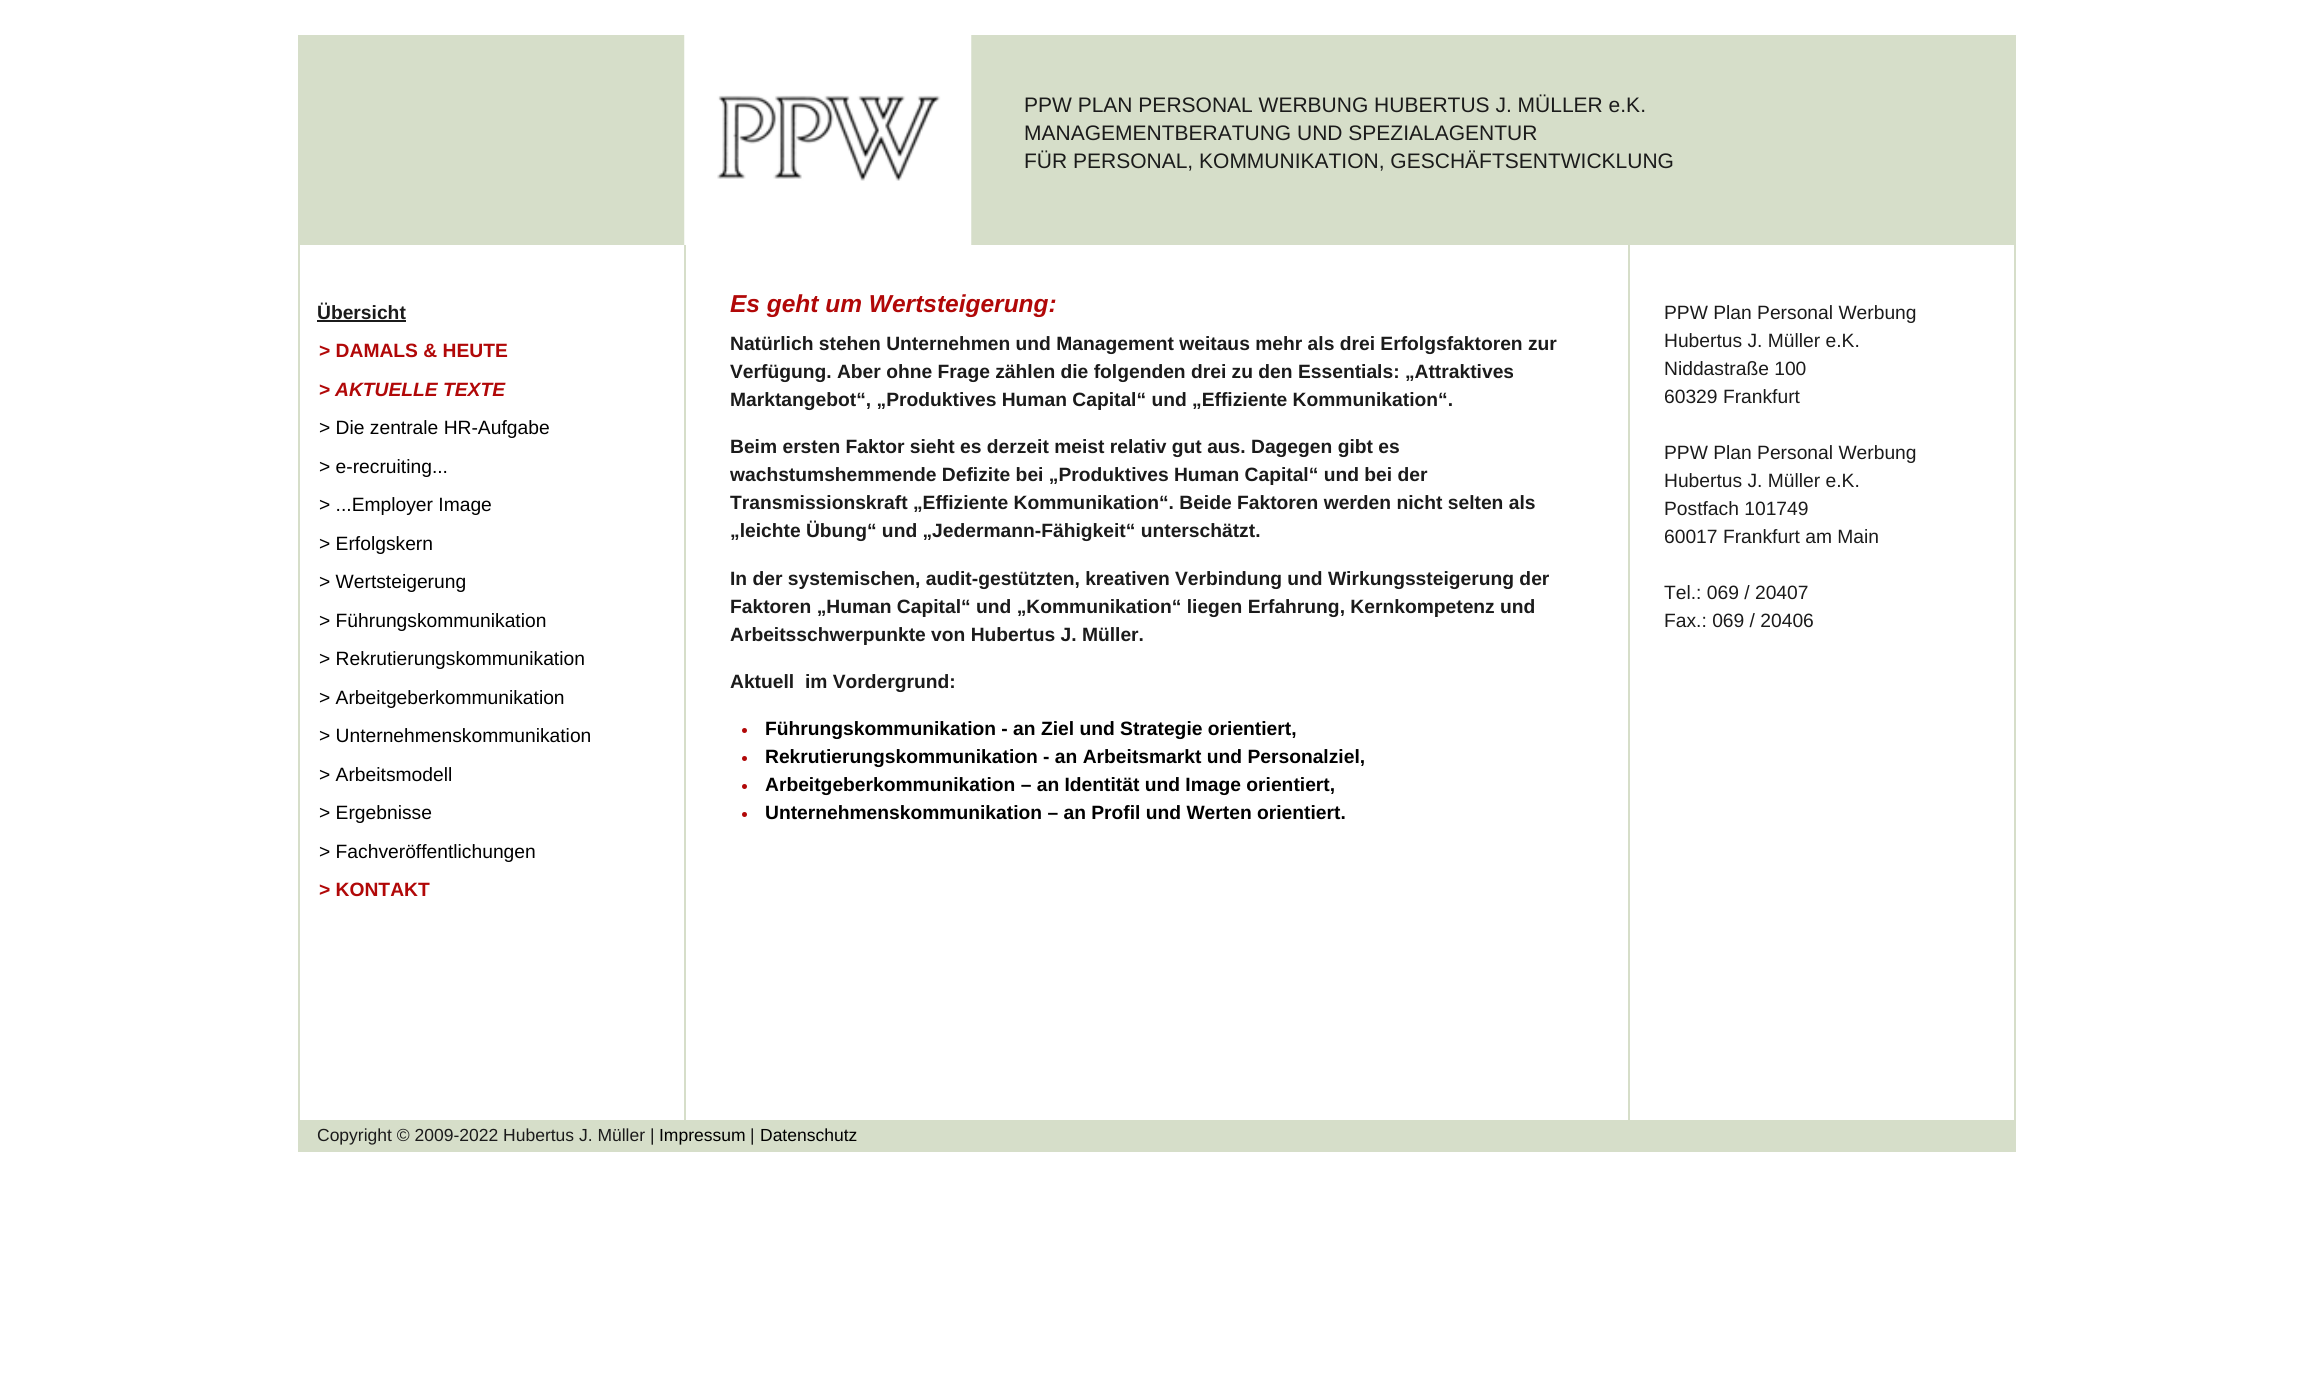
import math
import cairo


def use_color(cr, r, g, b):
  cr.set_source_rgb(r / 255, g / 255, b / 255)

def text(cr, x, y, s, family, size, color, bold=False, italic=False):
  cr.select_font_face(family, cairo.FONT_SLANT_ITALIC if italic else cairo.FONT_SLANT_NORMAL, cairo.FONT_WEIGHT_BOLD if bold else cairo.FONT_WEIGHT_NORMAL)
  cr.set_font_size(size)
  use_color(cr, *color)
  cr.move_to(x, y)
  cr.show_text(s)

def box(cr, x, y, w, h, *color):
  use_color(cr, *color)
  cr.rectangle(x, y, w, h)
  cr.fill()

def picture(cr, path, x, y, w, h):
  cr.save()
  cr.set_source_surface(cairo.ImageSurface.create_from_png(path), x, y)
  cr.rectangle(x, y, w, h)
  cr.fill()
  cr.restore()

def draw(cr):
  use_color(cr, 255, 255, 255)
  cr.paint()
  box(cr, 2014, 35, 2, 1117, 214, 222, 201)
  box(cr, 298, 35, 2, 1117, 214, 222, 201)
  box(cr, 300, 35, 1714, 210, 214, 222, 201)
  picture(cr, "img_01.png", 684, 35, 288, 210)
  box(cr, 317, 320, 89, 2, 27, 27, 27)
  box(cr, 1628, 245, 2, 875, 214, 222, 201)
  box(cr, 684, 245, 2, 875, 214, 222, 201)
  use_color(cr, 177, 8, 8)
  cr.arc(744.5, 730.5, 2.5, 0, 2 * math.pi)
  cr.fill()
  cr.arc(744.5, 758.5, 2.5, 0, 2 * math.pi)
  cr.fill()
  cr.arc(744.5, 786.5, 2.5, 0, 2 * math.pi)
  cr.fill()
  cr.arc(744.5, 814.5, 2.5, 0, 2 * math.pi)
  cr.fill()
  box(cr, 300, 1120, 1714, 32, 214, 222, 201)
  text(cr, 1024, 112, "PPW PLAN PERSONAL WERBUNG HUBERTUS J. MÜLLER e.K.", "Liberation Sans", 21, (27, 27, 27))
  text(cr, 1024, 140, "MANAGEMENTBERATUNG UND SPEZIALAGENTUR", "Liberation Sans", 21, (27, 27, 27))
  text(cr, 1024, 168, "FÜR PERSONAL, KOMMUNIKATION, GESCHÄFTSENTWICKLUNG", "Liberation Sans", 21, (27, 27, 27))
  text(cr, 317, 319, "Übersicht", "Liberation Sans", 19.25, (27, 27, 27), bold=True)
  text(cr, 319, 357, "> DAMALS & HEUTE", "Liberation Sans", 19.25, (177, 8, 8), bold=True)
  text(cr, 319, 396, ">", "Liberation Sans", 19.25, (177, 8, 8), bold=True)
  text(cr, 335, 396, "AKTUELLE TEXTE", "Liberation Sans", 19.25, (177, 8, 8), bold=True, italic=True)
  text(cr, 319, 434, "> Die zentrale HR-Aufgabe", "Liberation Sans", 19.25, (0, 0, 0))
  text(cr, 319, 473, "> e-recruiting...", "Liberation Sans", 19.25, (0, 0, 0))
  text(cr, 319, 511, "> ...Employer Image", "Liberation Sans", 19.25, (0, 0, 0))
  text(cr, 319, 550, "> Erfolgskern", "Liberation Sans", 19.25, (0, 0, 0))
  text(cr, 319, 588, "> Wertsteigerung", "Liberation Sans", 19.25, (0, 0, 0))
  text(cr, 319, 627, "> Führungskommunikation", "Liberation Sans", 19.25, (0, 0, 0))
  text(cr, 319, 665, "> Rekrutierungskommunikation", "Liberation Sans", 19.25, (0, 0, 0))
  text(cr, 319, 704, "> Arbeitgeberkommunikation", "Liberation Sans", 19.25, (0, 0, 0))
  text(cr, 319, 742, "> Unternehmenskommunikation", "Liberation Sans", 19.25, (0, 0, 0))
  text(cr, 319, 781, "> Arbeitsmodell", "Liberation Sans", 19.25, (0, 0, 0))
  text(cr, 319, 819, "> Ergebnisse", "Liberation Sans", 19.25, (0, 0, 0))
  text(cr, 319, 858, "> Fachveröffentlichungen", "Liberation Sans", 19.25, (0, 0, 0))
  text(cr, 319, 896, "> KONTAKT", "Liberation Sans", 19.25, (177, 8, 8), bold=True)
  text(cr, 730, 312, "Es geht um Wertsteigerung:", "Liberation Sans", 24.5, (177, 8, 8), bold=True, italic=True)
  text(cr, 730, 350, "Natürlich stehen Unternehmen und Management weitaus mehr als drei Erfolgsfaktoren zur", "Liberation Sans", 19.25, (27, 27, 27), bold=True)
  text(cr, 730, 378, "Verfügung. Aber ohne Frage zählen die folgenden drei zu den Essentials: „Attraktives", "Liberation Sans", 19.25, (27, 27, 27), bold=True)
  text(cr, 730, 406, "Marktangebot“, „Produktives Human Capital“ und „Effiziente Kommunikation“.", "Liberation Sans", 19.25, (27, 27, 27), bold=True)
  text(cr, 730, 453, "Beim ersten Faktor sieht es derzeit meist relativ gut aus. Dagegen gibt es", "Liberation Sans", 19.25, (27, 27, 27), bold=True)
  text(cr, 730, 481, "wachstumshemmende Defizite bei „Produktives Human Capital“ und bei der", "Liberation Sans", 19.25, (27, 27, 27), bold=True)
  text(cr, 730, 509, "Transmissionskraft „Effiziente Kommunikation“. Beide Faktoren werden nicht selten als", "Liberation Sans", 19.25, (27, 27, 27), bold=True)
  text(cr, 730, 537, "„leichte Übung“ und „Jedermann-Fähigkeit“ unterschätzt.", "Liberation Sans", 19.25, (27, 27, 27), bold=True)
  text(cr, 730, 585, "In der systemischen, audit-gestützten, kreativen Verbindung und Wirkungssteigerung der", "Liberation Sans", 19.25, (27, 27, 27), bold=True)
  text(cr, 730, 613, "Faktoren „Human Capital“ und „Kommunikation“ liegen Erfahrung, Kernkompetenz und", "Liberation Sans", 19.25, (27, 27, 27), bold=True)
  text(cr, 730, 641, "Arbeitsschwerpunkte von Hubertus J. Müller.", "Liberation Sans", 19.25, (27, 27, 27), bold=True)
  text(cr, 730, 688, "Aktuell  im Vordergrund:", "Liberation Sans", 19.25, (27, 27, 27), bold=True)
  text(cr, 765, 735, "Führungskommunikation - an Ziel und Strategie orientiert,", "Liberation Sans", 19.25, (0, 0, 0), bold=True)
  text(cr, 765, 763, "Rekrutierungskommunikation - an Arbeitsmarkt und Personalziel,", "Liberation Sans", 19.25, (0, 0, 0), bold=True)
  text(cr, 765, 791, "Arbeitgeberkommunikation – an Identität und Image orientiert,", "Liberation Sans", 19.25, (0, 0, 0), bold=True)
  text(cr, 765, 819, "Unternehmenskommunikation – an Profil und Werten orientiert.", "Liberation Sans", 19.25, (0, 0, 0), bold=True)
  text(cr, 1664, 319, "PPW Plan Personal Werbung", "Liberation Sans", 19.25, (27, 27, 27))
  text(cr, 1664, 347, "Hubertus J. Müller e.K.", "Liberation Sans", 19.25, (27, 27, 27))
  text(cr, 1664, 375, "Niddastraße 100", "Liberation Sans", 19.25, (27, 27, 27))
  text(cr, 1664, 403, "60329 Frankfurt", "Liberation Sans", 19.25, (27, 27, 27))
  text(cr, 1664, 459, "PPW Plan Personal Werbung", "Liberation Sans", 19.25, (27, 27, 27))
  text(cr, 1664, 487, "Hubertus J. Müller e.K.", "Liberation Sans", 19.25, (27, 27, 27))
  text(cr, 1664, 515, "Postfach 101749", "Liberation Sans", 19.25, (27, 27, 27))
  text(cr, 1664, 543, "60017 Frankfurt am Main", "Liberation Sans", 19.25, (27, 27, 27))
  text(cr, 1664, 599, "Tel.: 069 / 20407", "Liberation Sans", 19.25, (27, 27, 27))
  text(cr, 1664, 627, "Fax.: 069 / 20406", "Liberation Sans", 19.25, (27, 27, 27))
  text(cr, 317, 1141, "Copyright © 2009-2022 Hubertus J. Müller |", "Liberation Sans", 17.5, (27, 27, 27))
  text(cr, 659, 1141, "Impressum", "Liberation Sans", 17.5, (0, 0, 0))
  text(cr, 750, 1141, "|", "Liberation Sans", 17.5, (27, 27, 27))
  text(cr, 760, 1141, "Datenschutz", "Liberation Sans", 17.5, (0, 0, 0))


surface = cairo.ImageSurface(cairo.FORMAT_RGB24, 2313, 1376)
cr = cairo.Context(surface)
options = cairo.FontOptions()
options.set_hint_metrics(cairo.HINT_METRICS_OFF)
options.set_hint_style(cairo.HINT_STYLE_NONE)
cr.set_font_options(options)
cr.set_miter_limit(4)
draw(cr)
surface.write_to_png("out.png")
